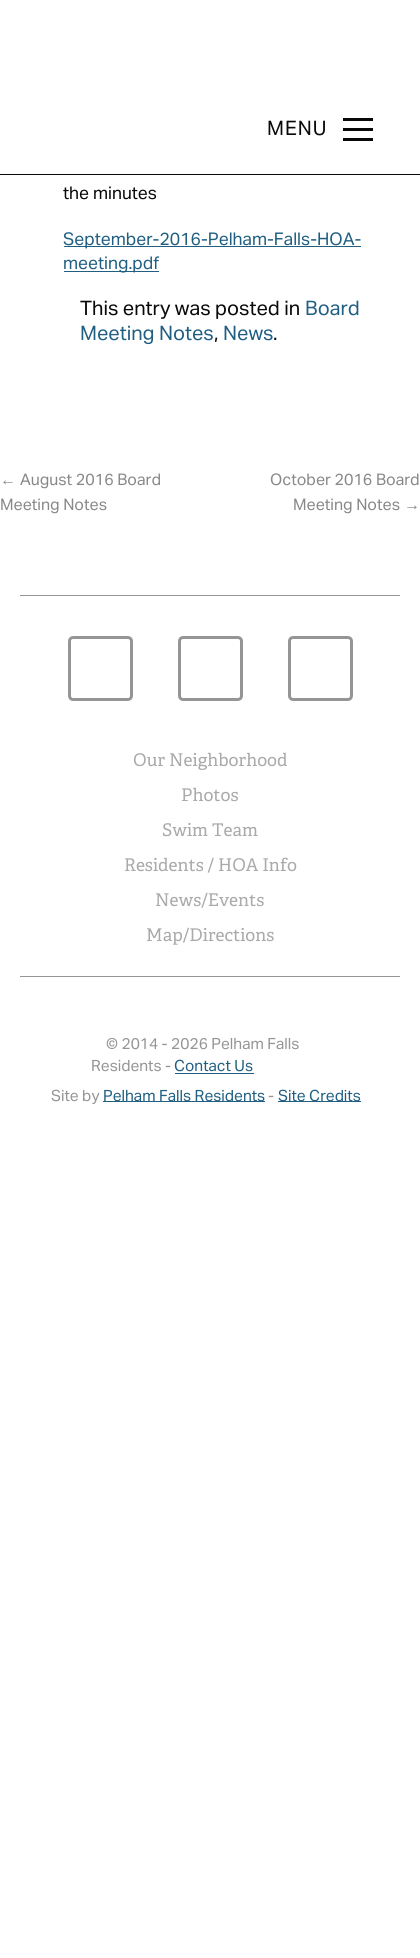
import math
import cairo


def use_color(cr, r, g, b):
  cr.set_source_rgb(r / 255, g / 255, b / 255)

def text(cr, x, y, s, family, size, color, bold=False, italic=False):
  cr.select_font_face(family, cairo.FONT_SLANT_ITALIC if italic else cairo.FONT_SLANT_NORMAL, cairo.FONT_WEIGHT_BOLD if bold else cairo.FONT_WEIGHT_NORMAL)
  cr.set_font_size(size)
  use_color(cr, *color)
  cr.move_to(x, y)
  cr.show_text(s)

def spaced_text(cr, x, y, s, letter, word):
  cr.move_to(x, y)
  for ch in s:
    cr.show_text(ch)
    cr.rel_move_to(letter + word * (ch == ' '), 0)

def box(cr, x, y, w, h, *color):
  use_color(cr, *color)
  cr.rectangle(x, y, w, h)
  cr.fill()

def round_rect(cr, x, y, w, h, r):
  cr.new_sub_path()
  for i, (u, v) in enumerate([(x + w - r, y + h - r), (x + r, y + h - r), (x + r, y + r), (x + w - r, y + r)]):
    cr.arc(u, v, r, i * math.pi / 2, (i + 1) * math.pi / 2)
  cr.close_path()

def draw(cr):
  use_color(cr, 255, 255, 255)
  cr.paint()
  box(cr, 0, 174, 420, 1, 9, 9, 9)
  box(cr, 343, 118, 30, 3, 9, 9, 9)
  box(cr, 343, 128, 30, 3, 9, 9, 9)
  box(cr, 343, 138, 30, 3, 9, 9, 9)
  box(cr, 64, 246, 297, 1, 32, 95, 130)
  box(cr, 64, 271, 95, 1, 32, 95, 130)
  box(cr, 20, 595, 380, 1, 149, 149, 149)
  round_rect(cr, 69.5, 637.5, 62, 62, 3.5)
  cr.set_line_width(3)
  cr.stroke()
  round_rect(cr, 179.5, 637.5, 62, 62, 3.5)
  cr.stroke()
  round_rect(cr, 289.5, 637.5, 62, 62, 3.5)
  cr.stroke()
  box(cr, 20, 976, 380, 1, 149, 149, 149)
  box(cr, 175, 1073, 79, 1, 32, 95, 130)
  box(cr, 103, 1101, 162, 1, 32, 95, 130)
  box(cr, 278, 1101, 83, 1, 32, 95, 130)
  cr.select_font_face("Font")
  cr.set_font_size(20)
  use_color(cr, 9, 9, 9)
  spaced_text(cr, 267, 135, "MENU", 1, 0)
  text(cr, 63, 199, "the minutes", "Font", 17.5, (9, 9, 9))
  text(cr, 63, 245, "September-2016-Pelham-Falls-HOA-", "Font", 17.5, (32, 95, 130))
  text(cr, 63, 269, "meeting.pdf", "Font", 17.5, (32, 95, 130))
  text(cr, 80, 315, "This entry was posted in", "Font", 20, (9, 9, 9))
  text(cr, 305, 315, "Board", "Font", 20, (32, 95, 130))
  text(cr, 80, 340, "Meeting Notes", "Font", 20, (32, 95, 130))
  text(cr, 214, 340, ",", "Font", 20, (9, 9, 9))
  text(cr, 223, 340, "News", "Font", 20, (32, 95, 130))
  text(cr, 273, 340, ".", "Font", 20, (9, 9, 9))
  text(cr, 0, 485, "←", "Liberation Sans", 16, (136, 136, 136))
  text(cr, 20, 485, "August 2016 Board", "Font", 16, (136, 136, 136))
  text(cr, 0, 510, "Meeting Notes", "Font", 16, (136, 136, 136))
  text(cr, 270, 485, "October 2016 Board", "Font", 16, (136, 136, 136))
  text(cr, 293, 510, "Meeting Notes", "Font", 16, (136, 136, 136))
  text(cr, 404, 510, "→", "Liberation Sans", 16, (136, 136, 136))
  text(cr, 133, 766, "Our Neighborhood", "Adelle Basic", 17.5, (170, 170, 170))
  text(cr, 181, 801, "Photos", "Adelle Basic", 17.5, (170, 170, 170))
  text(cr, 162, 836, "Swim Team", "Adelle Basic", 17.5, (170, 170, 170))
  text(cr, 124, 871, "Residents / HOA Info", "Adelle Basic", 17.5, (170, 170, 170))
  text(cr, 155, 906, "News/Events", "Adelle Basic", 17.5, (170, 170, 170))
  text(cr, 146, 941, "Map/Directions", "Adelle Basic", 17.5, (170, 170, 170))
  text(cr, 106, 1049, "© 2014 - 2026 Pelham Falls", "Font", 15.5, (149, 149, 149))
  text(cr, 91, 1071, "Residents -", "Font", 15.5, (149, 149, 149))
  text(cr, 174, 1071, "Contact Us", "Font", 15.5, (32, 95, 130))
  text(cr, 51, 1101, "Site by", "Font", 15.5, (149, 149, 149))
  text(cr, 103, 1101, "Pelham Falls Residents", "Font", 15.5, (32, 95, 130))
  text(cr, 268, 1101, "-", "Font", 15.5, (149, 149, 149))
  text(cr, 278, 1101, "Site Credits", "Font", 15.5, (32, 95, 130))


surface = cairo.ImageSurface(cairo.FORMAT_RGB24, 420, 1958)
cr = cairo.Context(surface)
options = cairo.FontOptions()
options.set_hint_metrics(cairo.HINT_METRICS_OFF)
options.set_hint_style(cairo.HINT_STYLE_NONE)
cr.set_font_options(options)
cr.set_miter_limit(4)
draw(cr)
surface.write_to_png("out.png")
